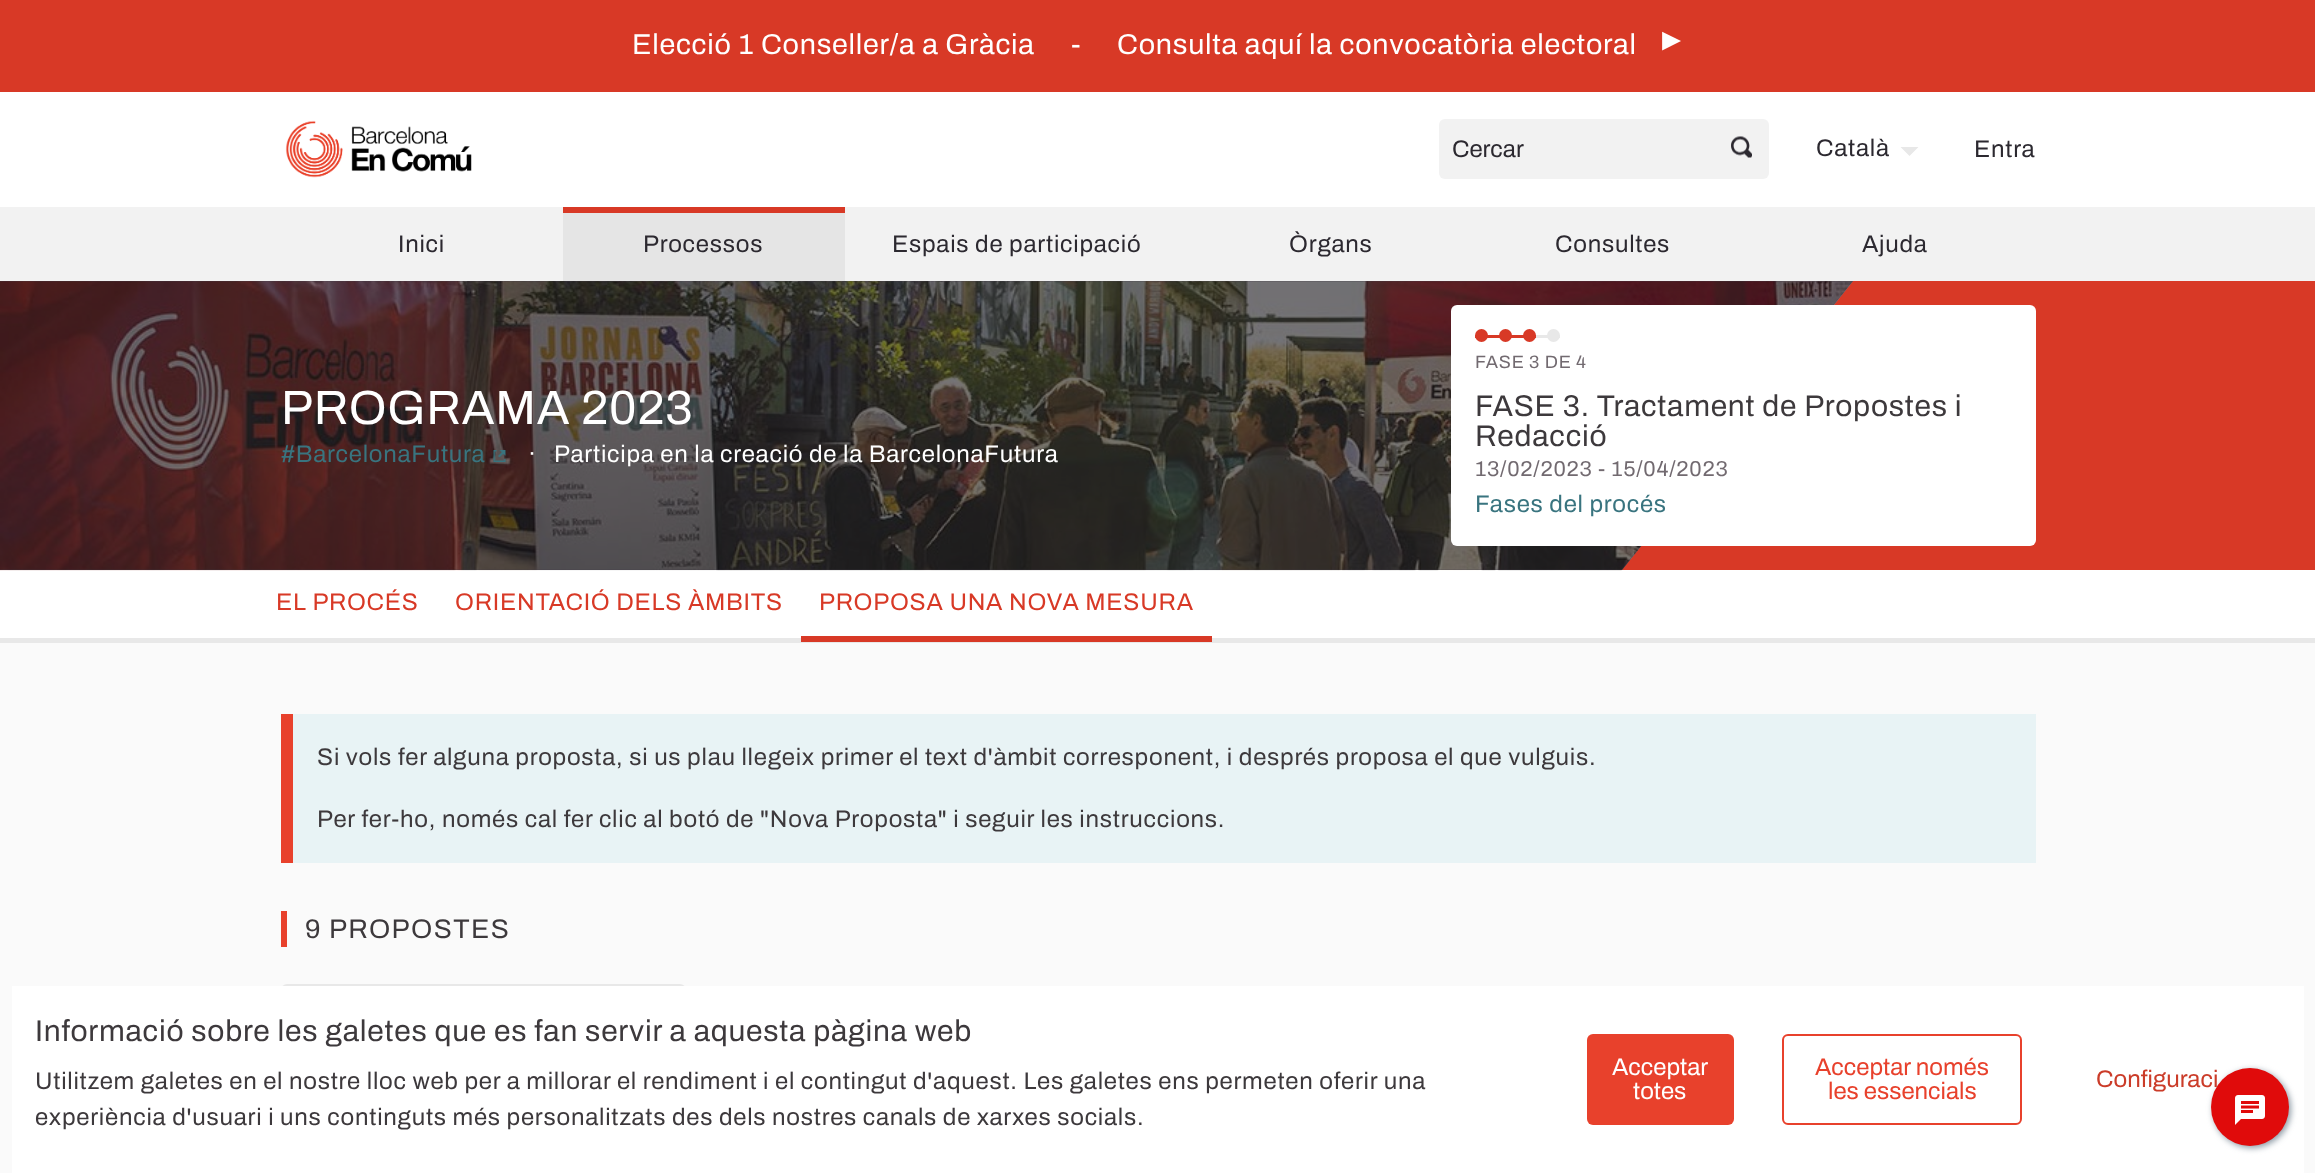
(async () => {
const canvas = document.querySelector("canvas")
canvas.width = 2315
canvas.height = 1173
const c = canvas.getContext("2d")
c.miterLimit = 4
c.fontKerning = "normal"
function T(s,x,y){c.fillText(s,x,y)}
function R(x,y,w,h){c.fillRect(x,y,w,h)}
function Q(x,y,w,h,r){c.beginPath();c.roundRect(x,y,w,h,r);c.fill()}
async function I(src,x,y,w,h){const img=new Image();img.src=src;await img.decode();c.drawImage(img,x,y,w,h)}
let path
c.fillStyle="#fafafa"
R(0,0,2315,1173)
c.fillStyle="#d83926"
R(0,0,2315,92)
c.letterSpacing="0.75px"
c.font="600 28.75px Archivo"
c.fillStyle="#fff"
T("Elecció 1 Conseller/a a Gràcia",632,54)
T("-",1071,54)
T("Consulta aquí la convocatòria electoral",1117,54)
await I("1.png",1662,31,19,20)
R(0,92,2315,115)
await I("2.png",285,120,187,58)
c.fillStyle="#f2f2f2"
c.beginPath()
c.roundRect(1439,119,276,60,[6,0,0,6])
c.fill()
c.letterSpacing="0px"
c.font="600 24px Archivo"
c.fillStyle="#2c2930"
T("Cercar",1452,157)
c.fillStyle="#f2f2f2"
c.beginPath()
c.roundRect(1715,119,54,60,[0,6,6,0])
c.fill()
await I("3.png",1731,136,21,22)
c.letterSpacing="0.75px"
c.fillStyle="#2c2930"
T("Català",1816,156)
c.fillStyle="#e8e8e8"
path = new Path2D("M1900.5 147h18l-9 9z")
c.fill(path)
c.fillStyle="#2c2930"
T("Entra",1974,157)
c.fillStyle="#f2f2f2"
R(0,207,2315,74)
c.fillStyle="#2c2930"
T("Inici",398,252)
c.fillStyle="#e5e5e5"
R(563,213,282,68)
c.fillStyle="#d83926"
R(563,207,282,6)
c.fillStyle="#2c2930"
T("Processos",643,252)
T("Espais de participació",892,252)
T("Òrgans",1289,252)
T("Consultes",1555,252)
T("Ajuda",1862,252)
c.fillStyle="#d83926"
R(1622,281,693,289)
c.fillStyle="#786f83"
path = new Path2D("M0 281v289h1622l231-289z")
c.fill(path)
c.fillStyle="#fff"
R(0,570,2315,68)
await I("4.png",0,281,1853,290)
c.fillStyle="#1a181d99"
path = new Path2D("M0 281v289h1622l231-289z")
c.fill(path)
c.font="600 48px Archivo"
c.fillStyle="#fff"
T("PROGRAMA 2023",281,424)
c.font="600 24px Archivo"
c.fillStyle="#39747f"
T("#BarcelonaFutura",281,462)
await I("5.png",493,450,13,12)
c.fillStyle="#fff"
T("·",528,462)
T("Participa en la creació de la BarcelonaFutura",554,462)
Q(1451,305,585,241,6)
c.fillStyle="#d83926"
c.beginPath()
c.arc(1481.5,335.5,6.5,0,7)
c.fill()
R(1475,335,13,3)
c.beginPath()
c.arc(1505.5,335.5,6.5,0,7)
c.fill()
R(1488,335,24,3)
c.beginPath()
c.arc(1529.5,335.5,6.5,0,7)
c.fill()
R(1512,335,24,3)
c.fillStyle="#e8e8e8"
c.beginPath()
c.arc(1553.5,335.5,6.5,0,7)
c.fill()
R(1536,335,24,3)
c.font="600 18px Archivo"
c.fillStyle="#726a70"
T("FASE 3 DE 4",1475,368)
c.font="600 30px Archivo"
c.fillStyle="#3d393c"
T("FASE 3. Tractament de Propostes i",1475,416)
T("Redacció",1475,446)
c.font="600 21.6px Archivo"
c.fillStyle="#726a70"
T("13/02/2023 - 15/04/2023",1475,476)
c.font="600 24px Archivo"
c.fillStyle="#39747f"
T("Fases del procés",1475,512)
c.fillStyle="#e8e8e8"
R(0,638,2315,5)
c.fillStyle="#d83926"
T("EL PROCÉS",276,610)
T("ORIENTACIÓ DELS ÀMBITS",455,610)
R(801,636,411,6)
T("PROPOSA UNA NOVA MESURA",819,610)
c.fillStyle="#e8f3f5"
R(293,714,1743,149)
c.fillStyle="#e8412c"
R(281,714,12,149)
c.fillStyle="#3d393c"
T("Si vols fer alguna proposta, si us plau llegeix primer el text d'àmbit corresponent, i després proposa el que vulguis.",317,765)
T("Per fer-ho, només cal fer clic al botó de \"Nova Proposta\" i seguir les instruccions.",317,827)
c.fillStyle="#e8412c"
R(281,911,6,36)
c.letterSpacing="1.4px"
c.font="600 27px Archivo"
c.fillStyle="#3d393c"
T("9 PROPOSTES",305,938)
c.beginPath()
c.roundRect(282,985,403,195,5)
c.strokeStyle="#e8e8e8"
c.lineWidth=2
c.stroke()
c.fillStyle="#fff"
R(12,986,2292,187)
c.letterSpacing="0.75px"
c.font="600 30px Archivo"
c.fillStyle="#3d393c"
T("Informació sobre les galetes que es fan servir a aquesta pàgina web",35,1041)
c.font="600 24px Archivo"
T("Utilitzem galetes en el nostre lloc web per a millorar el rendiment i el contingut d'aquest. Les galetes ens permeten oferir una",35,1089)
T("experiència d'usuari i uns continguts més personalitzats des dels nostres canals de xarxes socials.",35,1125)
c.fillStyle="#e8412c"
Q(1587,1034,147,91,6)
c.letterSpacing="0px"
c.fillStyle="#fff"
T("Acceptar",1612,1075)
T("totes",1633,1099)
c.beginPath()
c.roundRect(1783,1035,238,89,5)
c.strokeStyle="#e8412c"
c.stroke()
c.fillStyle="#e8412c"
T("Acceptar només",1815,1075)
T("les essencials",1828,1099)
c.fillStyle="#cb3c29"
T("Configuraci",2096,1087)
c.fillStyle="#657786bf"
c.filter="blur(3px)"
c.beginPath()
c.roundRect(2213,1070,78,78,39)
c.fill()
c.filter="none"
c.fillStyle="#e00b0b"
c.beginPath()
c.arc(2250,1107,39,0,7)
c.fill()
await I("6.png",2235,1095,30,30)
})()
